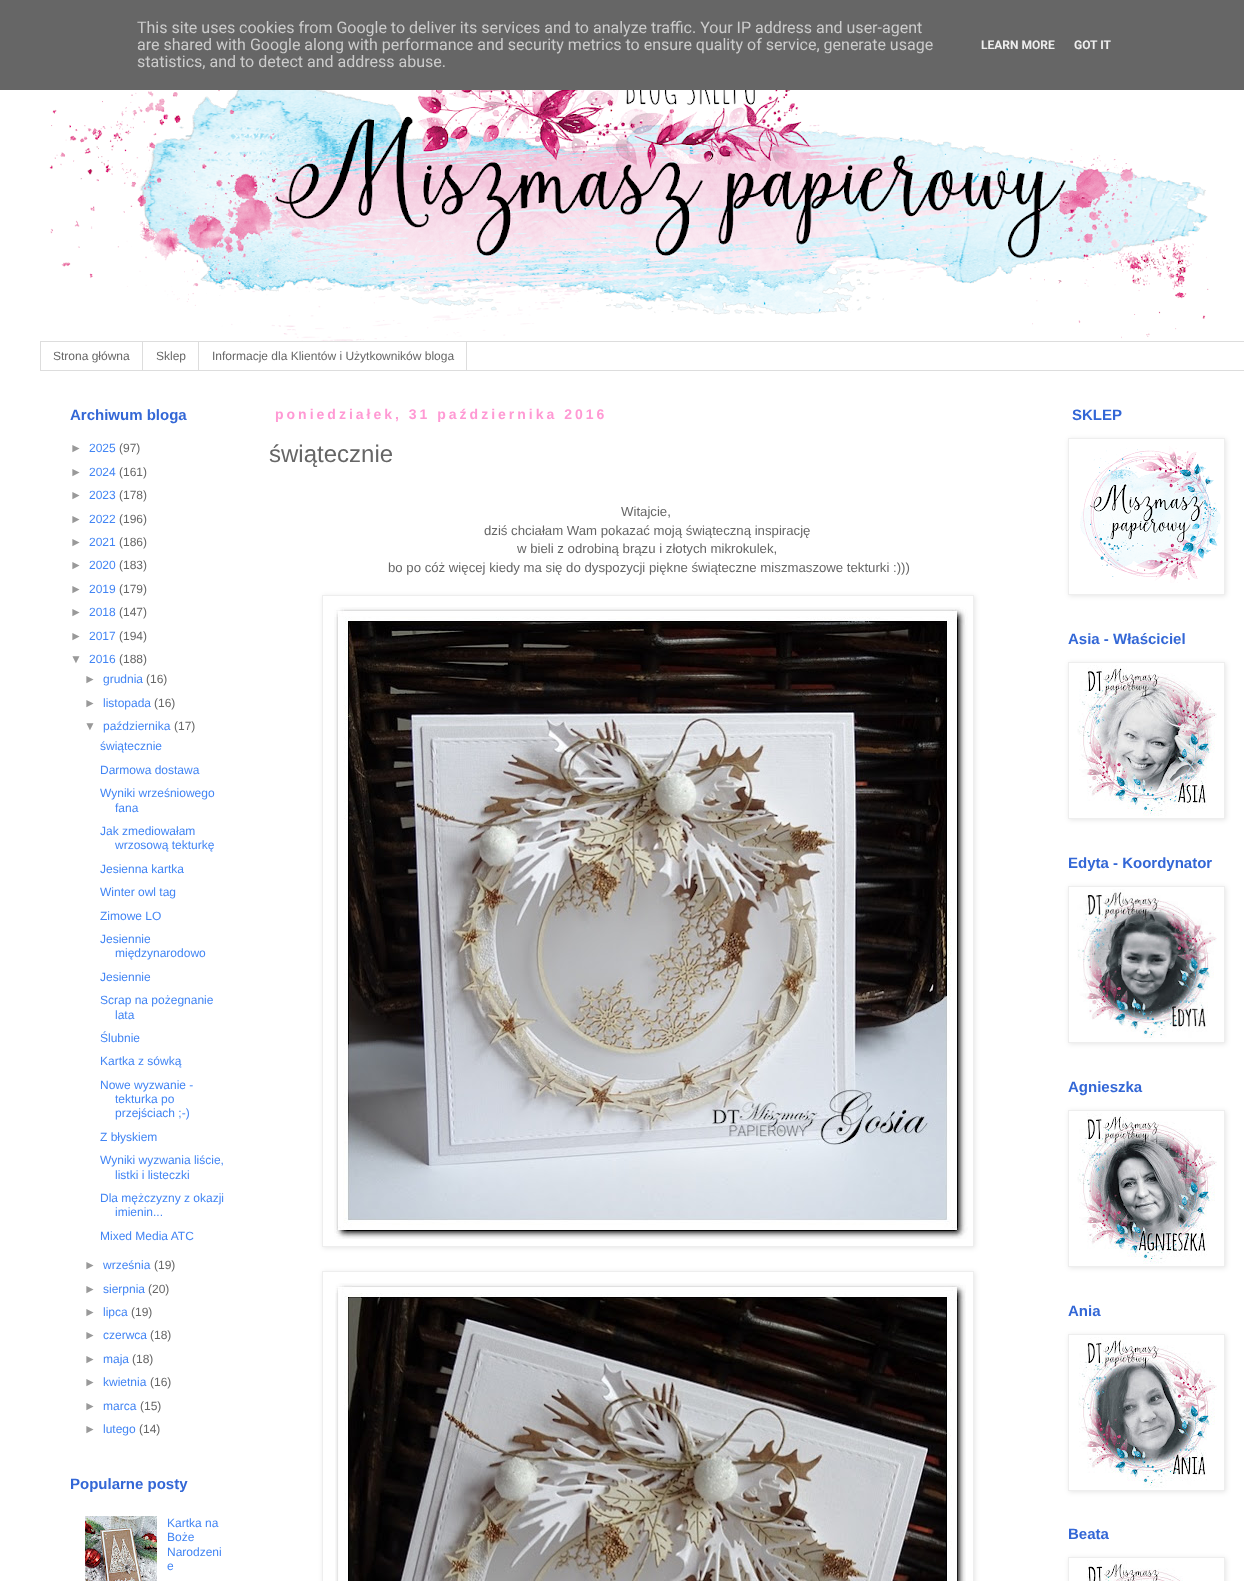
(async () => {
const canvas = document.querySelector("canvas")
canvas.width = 1244
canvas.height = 1581
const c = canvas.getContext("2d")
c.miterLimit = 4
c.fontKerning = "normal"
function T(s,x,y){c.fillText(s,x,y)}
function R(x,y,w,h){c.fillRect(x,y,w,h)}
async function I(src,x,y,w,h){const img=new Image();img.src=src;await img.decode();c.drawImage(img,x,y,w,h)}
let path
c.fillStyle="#fff"
R(0,0,1244,1581)
c.fillStyle="#666"
R(0,0,1244,90)
c.font="16px Roboto"
c.fillStyle="#ccc"
T("This site uses cookies from Google to deliver its services and to analyze traffic. Your IP address and user-agent",137,33)
T("are shared with Google along with performance and security metrics to ensure quality of service, generate usage",137,50)
T("statistics, and to detect and address abuse.",137,67)
c.font="bold 12px Roboto"
c.fillStyle="#eee"
T("LEARN MORE",981,49)
T("GOT IT",1074,49)
await I("1.png",49,90,1160,251)
c.strokeStyle="#ddd"
c.strokeRect(40.5,341.5,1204,29)
c.fillStyle="#ddd"
R(142,342,1,28)
c.font="12px Liberation Sans"
c.fillStyle="#666"
T("Strona główna",53,360)
c.fillStyle="#ddd"
R(198,342,1,28)
c.fillStyle="#666"
T("Sklep",156,360)
c.fillStyle="#ddd"
R(466,342,1,28)
c.fillStyle="#666"
T("Informacje dla Klientów i Użytkowników bloga",212,360)
c.font="bold 15px Liberation Sans"
c.fillStyle="#3367d6"
T("Archiwum bloga",70,420)
c.font="12px Liberation Sans"
c.fillStyle="#999"
T("►",70,452)
c.fillStyle="#4285f4"
T("2025",89,452)
c.fillStyle="#666"
T("(97)",119,452)
c.fillStyle="#999"
T("►",70,476)
c.fillStyle="#4285f4"
T("2024",89,476)
c.fillStyle="#666"
T("(161)",119,476)
c.fillStyle="#999"
T("►",70,499)
c.fillStyle="#4285f4"
T("2023",89,499)
c.fillStyle="#666"
T("(178)",119,499)
c.fillStyle="#999"
T("►",70,523)
c.fillStyle="#4285f4"
T("2022",89,523)
c.fillStyle="#666"
T("(196)",119,523)
c.fillStyle="#999"
T("►",70,546)
c.fillStyle="#4285f4"
T("2021",89,546)
c.fillStyle="#666"
T("(186)",119,546)
c.fillStyle="#999"
T("►",70,569)
c.fillStyle="#4285f4"
T("2020",89,569)
c.fillStyle="#666"
T("(183)",119,569)
c.fillStyle="#999"
T("►",70,593)
c.fillStyle="#4285f4"
T("2019",89,593)
c.fillStyle="#666"
T("(179)",119,593)
c.fillStyle="#999"
T("►",70,616)
c.fillStyle="#4285f4"
T("2018",89,616)
c.fillStyle="#666"
T("(147)",119,616)
c.fillStyle="#999"
T("►",70,640)
c.fillStyle="#4285f4"
T("2017",89,640)
c.fillStyle="#666"
T("(194)",119,640)
c.fillStyle="#999"
T("▼",70,663)
c.fillStyle="#4285f4"
T("2016",89,663)
c.fillStyle="#666"
T("(188)",119,663)
c.fillStyle="#999"
T("►",84,683)
c.fillStyle="#4285f4"
T("grudnia",103,683)
c.fillStyle="#666"
T("(16)",146,683)
c.fillStyle="#999"
T("►",84,707)
c.fillStyle="#4285f4"
T("listopada",103,707)
c.fillStyle="#666"
T("(16)",154,707)
c.fillStyle="#999"
T("▼",84,730)
c.fillStyle="#4285f4"
T("października",103,730)
c.fillStyle="#666"
T("(17)",174,730)
c.fillStyle="#4285f4"
T("świątecznie",100,750)
T("Darmowa dostawa",100,774)
T("Wyniki wrześniowego",100,797)
T("fana",115,812)
T("Jak zmediowałam",100,835)
T("wrzosową tekturkę",115,849)
T("Jesienna kartka",100,873)
T("Winter owl tag",100,896)
T("Zimowe LO",100,920)
T("Jesiennie",100,943)
T("międzynarodowo",115,957)
T("Jesiennie",100,981)
T("Scrap na pożegnanie",100,1004)
T("lata",115,1019)
T("Ślubnie",100,1042)
T("Kartka z sówką",100,1065)
T("Nowe wyzwanie -",100,1089)
T("tekturka po",115,1103)
T("przejściach ;-)",115,1117)
T("Z błyskiem",100,1141)
T("Wyniki wyzwania liście,",100,1164)
T("listki i listeczki",115,1179)
T("Dla mężczyzny z okazji",100,1202)
T("imienin...",115,1216)
T("Mixed Media ATC",100,1240)
c.fillStyle="#999"
T("►",84,1269)
c.fillStyle="#4285f4"
T("września",103,1269)
c.fillStyle="#666"
T("(19)",154,1269)
c.fillStyle="#999"
T("►",84,1293)
c.fillStyle="#4285f4"
T("sierpnia",103,1293)
c.fillStyle="#666"
T("(20)",148,1293)
c.fillStyle="#999"
T("►",84,1316)
c.fillStyle="#4285f4"
T("lipca",103,1316)
c.fillStyle="#666"
T("(19)",131,1316)
c.fillStyle="#999"
T("►",84,1339)
c.fillStyle="#4285f4"
T("czerwca",103,1339)
c.fillStyle="#666"
T("(18)",150,1339)
c.fillStyle="#999"
T("►",84,1363)
c.fillStyle="#4285f4"
T("maja",103,1363)
c.fillStyle="#666"
T("(18)",132,1363)
c.fillStyle="#999"
T("►",84,1386)
c.fillStyle="#4285f4"
T("kwietnia",103,1386)
c.fillStyle="#666"
T("(16)",150,1386)
c.fillStyle="#999"
T("►",84,1410)
c.fillStyle="#4285f4"
T("marca",103,1410)
c.fillStyle="#666"
T("(15)",140,1410)
c.fillStyle="#999"
T("►",84,1433)
c.fillStyle="#4285f4"
T("lutego",103,1433)
c.fillStyle="#666"
T("(14)",139,1433)
c.font="bold 15px Liberation Sans"
c.fillStyle="#3367d6"
T("Popularne posty",70,1489)
await I("2.png",85,1516,72,65)
c.font="12px Liberation Sans"
c.fillStyle="#4285f4"
T("Kartka na",167,1527)
T("Boże",167,1541)
T("Narodzeni",167,1556)
T("e",167,1570)
c.letterSpacing="3px"
c.font="bold 14px Liberation Sans"
c.fillStyle="#ff99d4"
T("poniedziałek, 31 października 2016",275,419)
c.letterSpacing="0px"
c.font="24px Liberation Sans"
c.fillStyle="#666"
T("świątecznie",269,462)
c.font="13.2px Liberation Sans"
T("Witajcie,",621,516)
T("dziś chciałam Wam pokazać moją świąteczną inspirację",484,535)
T("w bieli z odrobiną brązu i złotych mikrokulek,",517,553)
T("bo po cóż więcej kiedy ma się do dyspozycji piękne świąteczne miszmaszowe tekturki :)))",388,572)
c.save()
path = new Path2D("M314 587h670v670h-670zm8 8h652v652h-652z")
c.clip(path,"evenodd")
c.fillStyle="#0000001a"
c.filter="blur(2.5px)"
c.beginPath()
c.rect(323,596,652,652)
c.fill()
c.filter="none"
c.restore()
c.strokeStyle="#eee"
c.strokeRect(322.5,595.5,651,651)
await I("3.png",334,607,634,632)
c.save()
path = new Path2D("M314 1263h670v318h-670zm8 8h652v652h-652z")
c.clip(path,"evenodd")
c.fillStyle="#0000001a"
c.filter="blur(2.5px)"
c.beginPath()
c.rect(323,1272,652,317)
c.fill()
c.filter="none"
c.restore()
c.strokeRect(322.5,1271.5,651,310)
await I("4.png",335,1283,631,298)
c.font="bold 15px Liberation Sans"
c.fillStyle="#3367d6"
T("SKLEP",1072,420)
c.save()
path = new Path2D("M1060 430h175v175h-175zm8 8h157v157h-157z")
c.clip(path,"evenodd")
c.fillStyle="#0000001a"
c.filter="blur(2.5px)"
c.beginPath()
c.rect(1069,439,157,157)
c.fill()
c.filter="none"
c.restore()
c.strokeRect(1068.5,438.5,156,156)
await I("5.png",1080,446,141,137)
T("Asia - Właściciel",1068,644)
c.save()
path = new Path2D("M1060 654h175v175h-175zm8 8h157v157h-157z")
c.clip(path,"evenodd")
c.fillStyle="#0000001a"
c.filter="blur(2.5px)"
c.beginPath()
c.rect(1069,663,157,157)
c.fill()
c.filter="none"
c.restore()
c.strokeRect(1068.5,662.5,156,156)
await I("6.png",1077,665,140,151)
T("Edyta - Koordynator",1068,868)
c.save()
path = new Path2D("M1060 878h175v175h-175zm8 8h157v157h-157z")
c.clip(path,"evenodd")
c.fillStyle="#0000001a"
c.filter="blur(2.5px)"
c.beginPath()
c.rect(1069,887,157,157)
c.fill()
c.filter="none"
c.restore()
c.strokeRect(1068.5,886.5,156,156)
await I("7.png",1077,889,140,149)
T("Agnieszka",1068,1092)
c.save()
path = new Path2D("M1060 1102h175v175h-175zm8 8h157v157h-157z")
c.clip(path,"evenodd")
c.fillStyle="#0000001a"
c.filter="blur(2.5px)"
c.beginPath()
c.rect(1069,1111,157,157)
c.fill()
c.filter="none"
c.restore()
c.strokeRect(1068.5,1110.5,156,156)
await I("8.png",1077,1113,140,151)
T("Ania",1068,1316)
c.save()
path = new Path2D("M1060 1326h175v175h-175zm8 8h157v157h-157z")
c.clip(path,"evenodd")
c.fillStyle="#0000001a"
c.filter="blur(2.5px)"
c.beginPath()
c.rect(1069,1335,157,157)
c.fill()
c.filter="none"
c.restore()
c.strokeRect(1068.5,1334.5,156,156)
await I("9.png",1078,1337,139,151)
T("Beata",1068,1539)
c.save()
path = new Path2D("M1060 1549h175v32h-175zm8 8h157v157h-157z")
c.clip(path,"evenodd")
c.fillStyle="#0000001a"
c.filter="blur(2.5px)"
c.beginPath()
c.rect(1069,1558,157,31)
c.fill()
c.filter="none"
c.restore()
c.strokeRect(1068.5,1557.5,156,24)
await I("10.png",1087,1560,96,21)
})()
